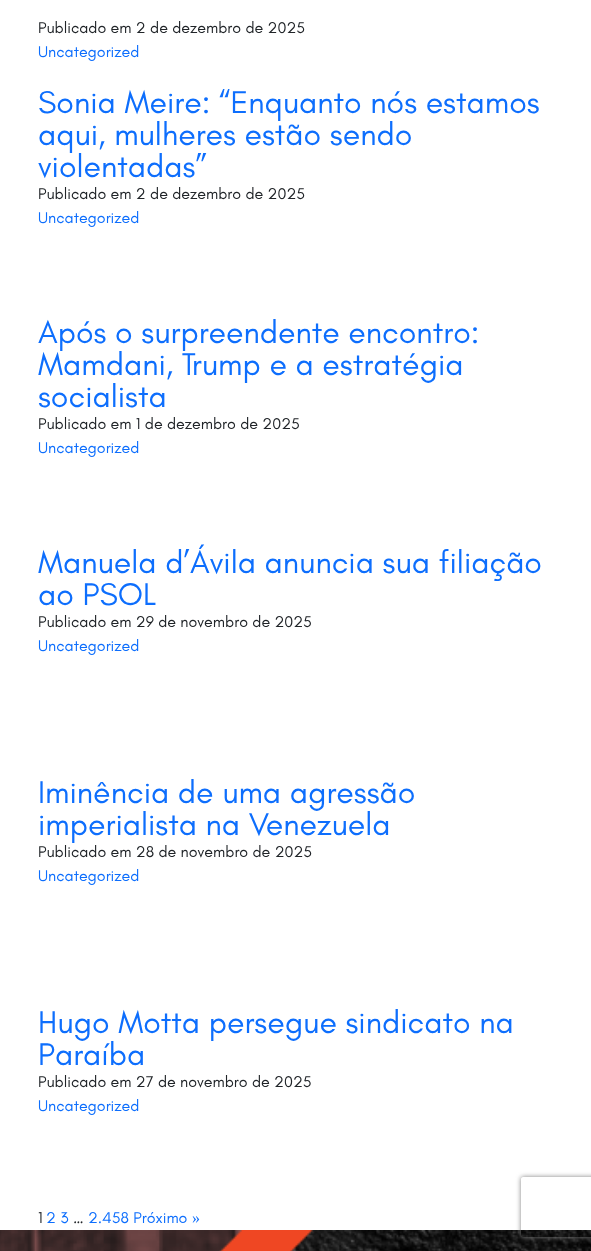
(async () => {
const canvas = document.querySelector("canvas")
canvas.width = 591
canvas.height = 1251
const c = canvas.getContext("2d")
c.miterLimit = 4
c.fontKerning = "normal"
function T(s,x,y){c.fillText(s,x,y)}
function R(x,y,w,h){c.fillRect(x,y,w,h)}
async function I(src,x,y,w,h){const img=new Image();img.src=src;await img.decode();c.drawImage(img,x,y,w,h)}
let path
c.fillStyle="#fff"
R(0,0,591,1251)
c.font="16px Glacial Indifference"
c.fillStyle="#212529"
T("Publicado em 2 de dezembro de 2025",38,33)
c.fillStyle="#0d6efd"
T("Uncategorized",38,57)
c.font="32px Glacial Indifference"
T("Sonia Meire: “Enquanto nós estamos",38,113)
T("aqui, mulheres estão sendo",38,145)
T("violentadas”",38,177)
c.font="16px Glacial Indifference"
c.fillStyle="#212529"
T("Publicado em 2 de dezembro de 2025",38,199)
c.fillStyle="#0d6efd"
T("Uncategorized",38,223)
c.font="32px Glacial Indifference"
T("Após o surpreendente encontro:",38,343)
T("Mamdani, Trump e a estratégia",38,375)
T("socialista",38,407)
c.font="16px Glacial Indifference"
c.fillStyle="#212529"
T("Publicado em 1 de dezembro de 2025",38,429)
c.fillStyle="#0d6efd"
T("Uncategorized",38,453)
c.font="32px Glacial Indifference"
T("Manuela d’Ávila anuncia sua filiação",38,573)
T("ao PSOL",38,605)
c.font="16px Glacial Indifference"
c.fillStyle="#212529"
T("Publicado em 29 de novembro de 2025",38,627)
c.fillStyle="#0d6efd"
T("Uncategorized",38,651)
c.font="32px Glacial Indifference"
T("Iminência de uma agressão",38,803)
T("imperialista na Venezuela",38,835)
c.font="16px Glacial Indifference"
c.fillStyle="#212529"
T("Publicado em 28 de novembro de 2025",38,857)
c.fillStyle="#0d6efd"
T("Uncategorized",38,881)
c.font="32px Glacial Indifference"
T("Hugo Motta persegue sindicato na",38,1033)
T("Paraíba",38,1065)
c.font="16px Glacial Indifference"
c.fillStyle="#212529"
T("Publicado em 27 de novembro de 2025",38,1087)
c.fillStyle="#0d6efd"
T("Uncategorized",38,1111)
c.fillStyle="#212529"
T("1",38,1223)
c.fillStyle="#0d6efd"
T("2 3",46,1223)
c.fillStyle="#212529"
T("…",73,1223)
c.fillStyle="#0d6efd"
T("2.458 Próximo",88,1223)
c.font="16px Liberation Serif"
T("»",192,1223)
await I("1.png",0,1230,591,21)
c.save()
path = new Path2D("M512 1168h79v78h-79zm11 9h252c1 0 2 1 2 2v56c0 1-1 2-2 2h-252c-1 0-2-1-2-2v-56c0-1 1-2 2-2z")
c.clip(path,"evenodd")
c.fillStyle="#808080"
c.filter="blur(2.5px)"
c.beginPath()
c.roundRect(521,1177,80,60,2)
c.fill()
c.filter="none"
c.restore()
})()
